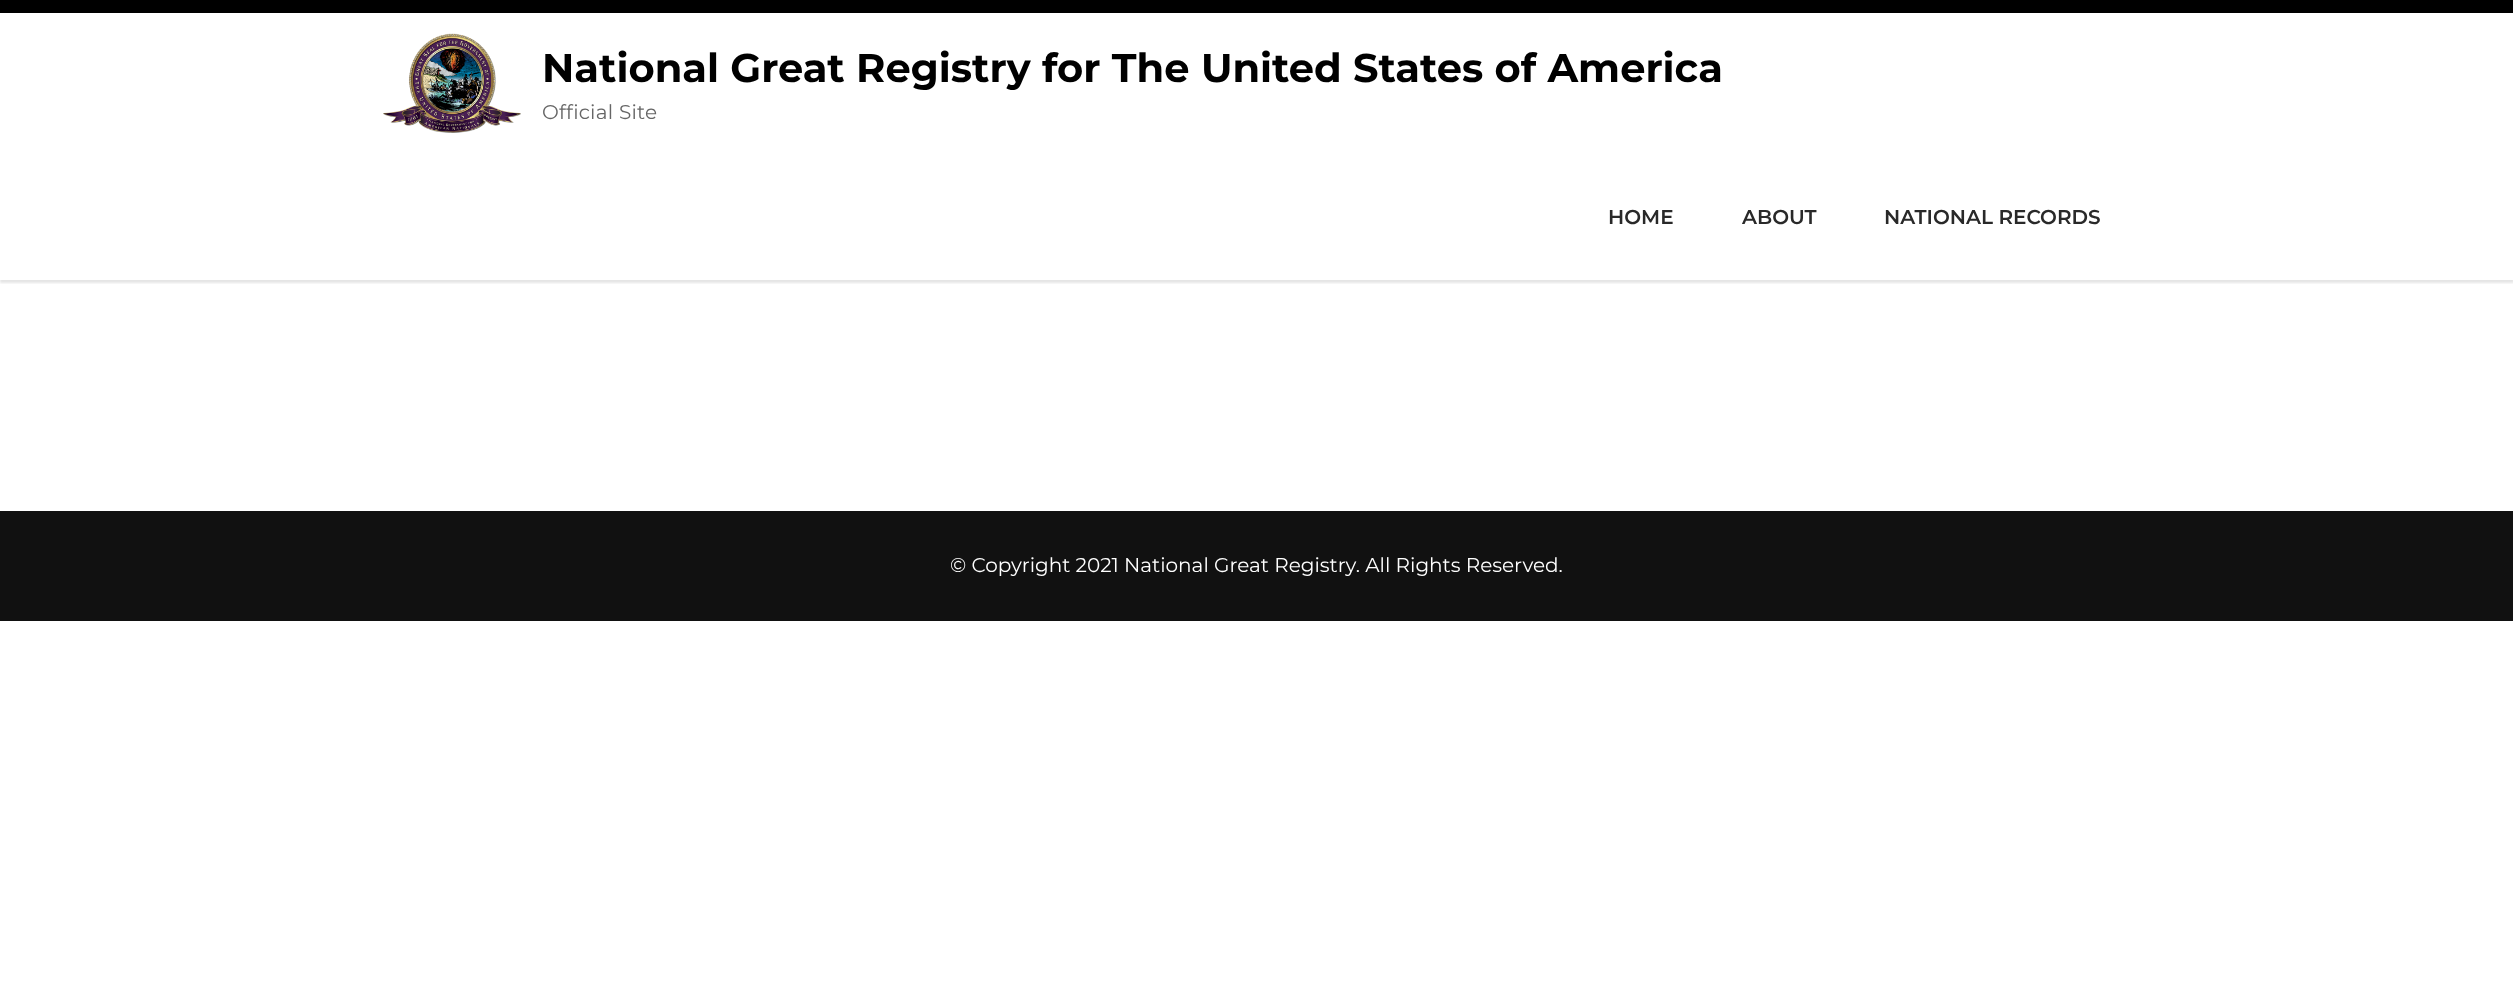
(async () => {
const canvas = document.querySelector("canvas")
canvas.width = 2513
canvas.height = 997
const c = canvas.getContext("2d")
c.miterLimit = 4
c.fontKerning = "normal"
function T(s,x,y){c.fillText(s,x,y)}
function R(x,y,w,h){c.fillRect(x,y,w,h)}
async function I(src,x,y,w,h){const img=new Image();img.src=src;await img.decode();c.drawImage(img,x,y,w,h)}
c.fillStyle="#fff"
R(0,0,2513,997)
c.fillStyle="#000"
R(0,0,2513,13)
c.save()
c.beginPath()
c.rect(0,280,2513,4)
c.clip()
c.fillStyle="#0000001a"
c.filter="blur(1px)"
c.beginPath()
c.rect(0,15,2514,268)
c.fill()
c.filter="none"
c.restore()
await I("1.png",383,33,138,100)
c.font="bold 40px Montserrat"
T("National Great Registry for The United States of America",542,82)
c.letterSpacing="0.25px"
c.font="20px Montserrat"
c.fillStyle="#666"
T("Official Site",542,119)
c.letterSpacing="0px"
c.font="600 20px Montserrat"
c.fillStyle="#292929"
T("HOME",1608,224)
T("ABOUT",1742,224)
T("NATIONAL RECORDS",1884,224)
c.fillStyle="#111"
R(0,511,2513,110)
c.font="20px Montserrat"
c.fillStyle="#fff"
T("© Copyright 2021 National Great Registry. All Rights Reserved.",950,572)
})()
